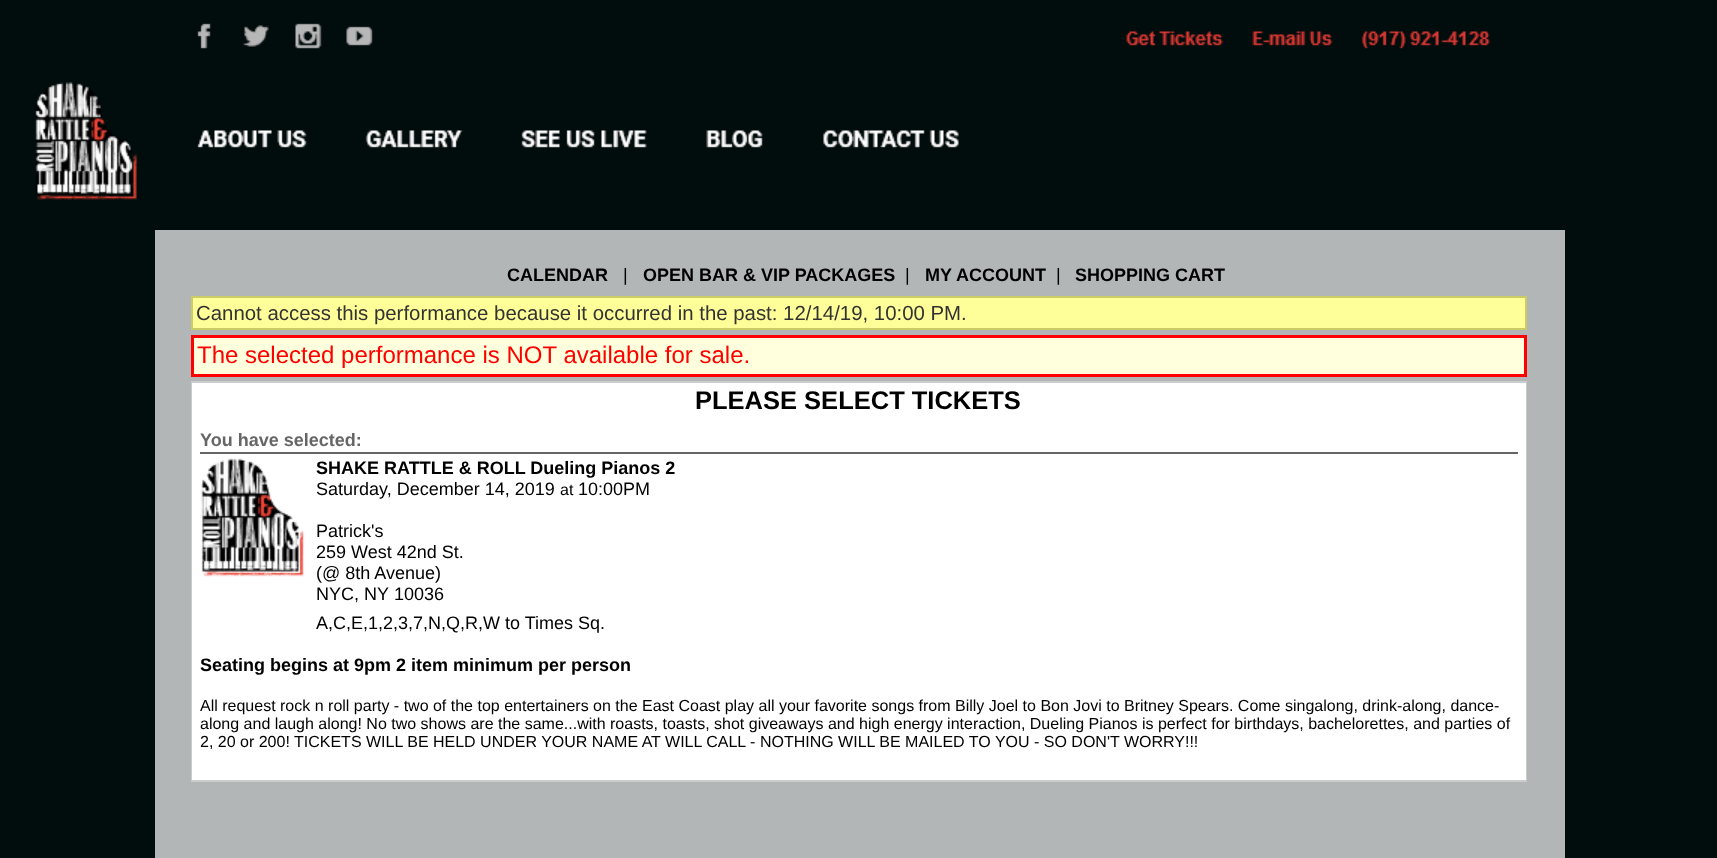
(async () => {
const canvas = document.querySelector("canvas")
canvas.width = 1717
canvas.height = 858
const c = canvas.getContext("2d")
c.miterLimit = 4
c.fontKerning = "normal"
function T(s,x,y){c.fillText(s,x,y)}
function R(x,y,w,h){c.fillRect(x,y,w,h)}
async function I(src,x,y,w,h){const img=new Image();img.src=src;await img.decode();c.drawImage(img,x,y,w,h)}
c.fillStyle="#010d0d"
R(0,0,1717,858)
await I("1.png",35,23,1455,177)
c.fillStyle="#b3b6b6"
R(155,230,1410,628)
c.font="bold 18px Liberation Sans"
c.fillStyle="#000"
T("CALENDAR",507,281)
c.font="18px Liberation Sans"
T("|",623,281)
c.font="bold 18px Liberation Sans"
T("OPEN BAR & VIP PACKAGES",643,281)
c.font="18px Liberation Sans"
T("|",905,281)
c.font="bold 18px Liberation Sans"
T("MY ACCOUNT",925,281)
c.font="18px Liberation Sans"
T("|",1056,281)
c.font="bold 18px Liberation Sans"
T("SHOPPING CART",1075,281)
c.fillStyle="#ff9"
c.beginPath()
c.rect(192,297,1334,32)
c.fill()
c.strokeStyle="#cc6"
c.lineWidth=2
c.stroke()
c.font="20.4px Liberation Sans"
c.fillStyle="#333"
T("Cannot access this performance because it occurred in the past: 12/14/19, 10:00 PM.",196,320)
c.fillStyle="#ffd"
c.beginPath()
c.rect(192.5,336.5,1333,39)
c.fill()
c.strokeStyle="#f00"
c.lineWidth=3
c.stroke()
c.font="24px Liberation Sans"
c.fillStyle="#f00"
T("The selected performance is NOT available for sale.",197,363)
c.strokeStyle="#ccc"
c.lineWidth=2
c.strokeRect(192,382,1334,399)
c.fillStyle="#fff"
R(192,383,1334,397)
c.font="bold 25.5px Liberation Sans"
c.fillStyle="#000"
T("PLEASE SELECT TICKETS",695,409)
c.fillStyle="#666"
R(200,452,1318,2)
c.font="bold 18px Liberation Sans"
T("You have selected:",200,446)
await I("2.png",201,458,104,119)
c.fillStyle="#000"
T("SHAKE RATTLE & ROLL Dueling Pianos 2",316,474)
c.font="18px Liberation Sans"
T("Saturday, December 14, 2019",316,495)
c.font="16px Liberation Sans"
T("at",560,495)
c.font="18px Liberation Sans"
T("10:00PM",578,495)
T("Patrick's",316,537)
T("259 West 42nd St.",316,558)
T("(@ 8th Avenue)",316,579)
T("NYC, NY",316,600)
T("10036",394,600)
T("A,C,E,1,2,3,7,N,Q,R,W to Times Sq.",316,629)
c.font="bold 18px Liberation Sans"
T("Seating begins at 9pm 2 item minimum per person",200,671)
c.font="16px Liberation Sans"
T("All request rock n roll party - two of the top entertainers on the East Coast play all your favorite songs from Billy Joel to Bon Jovi to Britney Spears. Come singalong, drink-along, dance-",200,711)
T("along and laugh along! No two shows are the same...with roasts, toasts, shot giveaways and high energy interaction, Dueling Pianos is perfect for birthdays, bachelorettes, and parties of",200,729)
T("2, 20 or 200!",200,747)
T("TICKETS WILL BE HELD UNDER YOUR NAME AT WILL CALL - NOTHING WILL BE MAILED TO YOU - SO DON'T WORRY!!!",294,747)
})()
